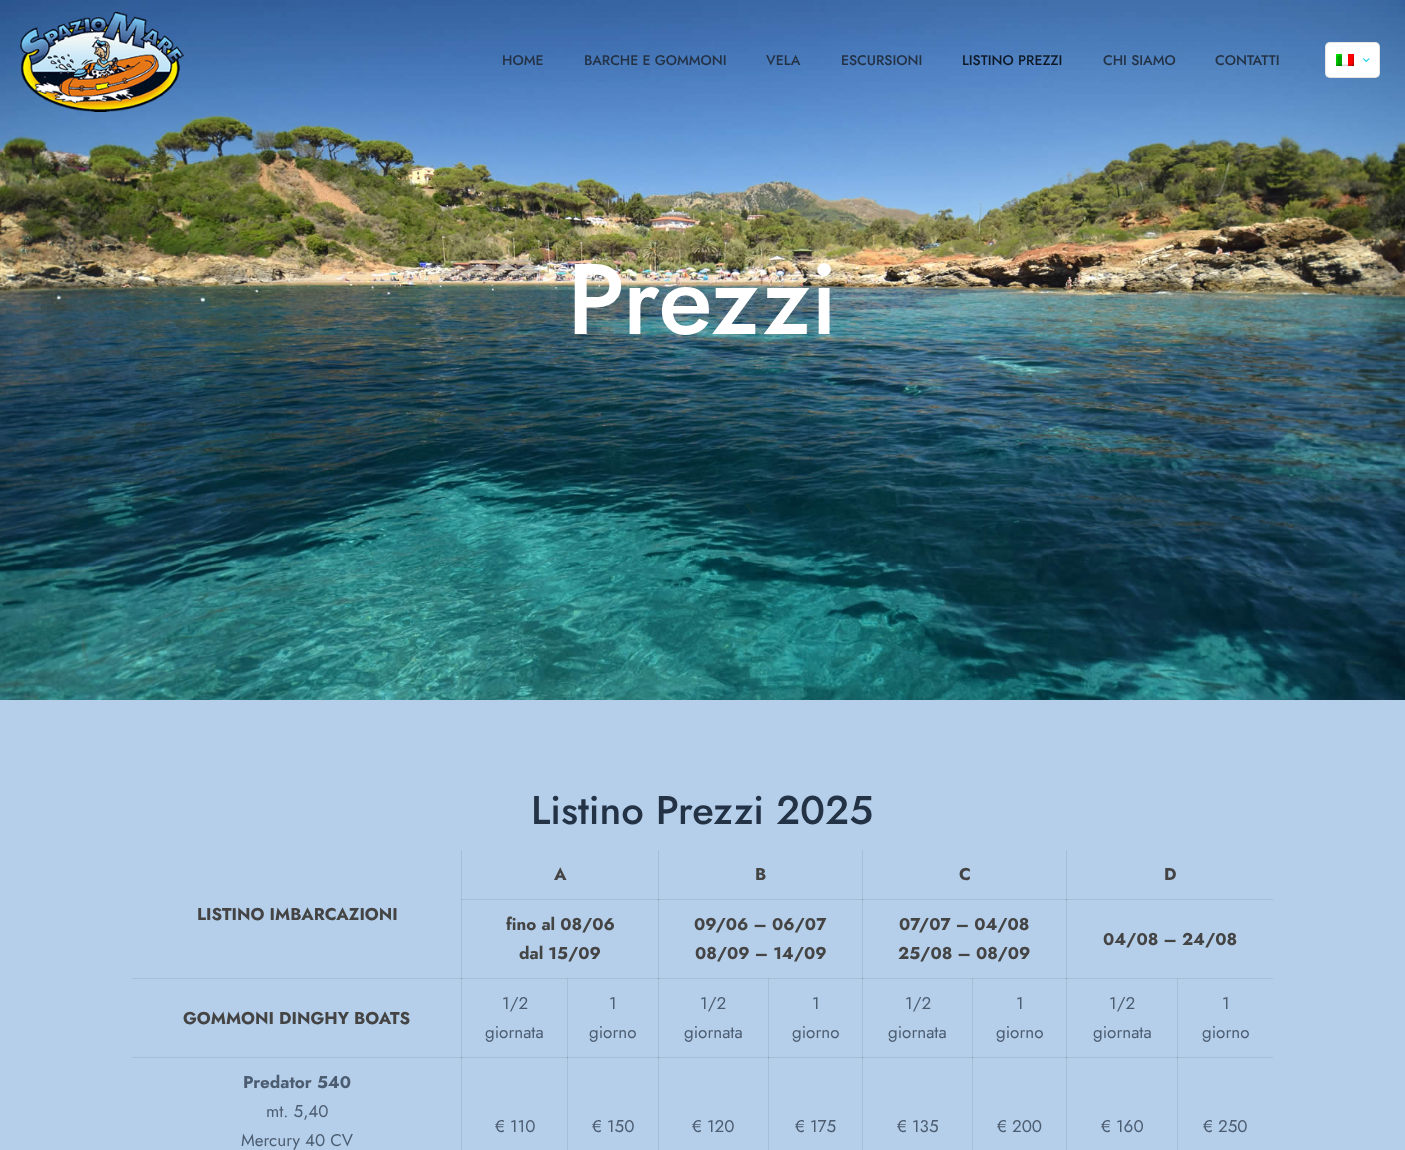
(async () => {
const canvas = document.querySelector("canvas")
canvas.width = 1405
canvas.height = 1150
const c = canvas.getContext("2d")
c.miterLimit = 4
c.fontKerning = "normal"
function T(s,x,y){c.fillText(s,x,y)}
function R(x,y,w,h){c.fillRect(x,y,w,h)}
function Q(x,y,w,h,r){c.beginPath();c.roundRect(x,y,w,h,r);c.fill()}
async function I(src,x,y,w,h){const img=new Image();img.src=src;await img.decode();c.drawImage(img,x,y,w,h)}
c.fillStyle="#fff"
R(0,0,1405,1150)
await I("4.png",0,0,1405,700)
await I("1.png",20,12,164,100)
c.font="500 14px Jost"
c.fillStyle="#233245"
T("HOME",502,65)
T("BARCHE E GOMMONI",584,65)
T("VELA",766,65)
T("ESCURSIONI",841,65)
c.fillStyle="#0f1a28"
T("LISTINO PREZZI",962,65)
c.fillStyle="#233245"
T("CHI SIAMO",1103,65)
T("CONTATTI",1215,65)
c.fillStyle="#fff"
Q(1325,42,55,36,5)
c.beginPath()
c.roundRect(1325.5,42.5,54,35,4.5)
c.strokeStyle="#0000001a"
c.stroke()
await I("2.png",1336,54,18,12)
await I("3.png",1363,58,7,4)
c.font="500 100px Jost"
T("Prezzi",567,334)
c.fillStyle="#b5cfea"
R(0,700,1405,450)
c.fillStyle="#a7bed7"
R(132,978,330,1)
R(461,850,1,129)
R(461,899,198,1)
c.fillStyle="#9aafc6"
R(461,899,1,1)
c.fillStyle="#a7bed7"
R(658,850,1,50)
R(658,899,205,1)
R(862,850,1,50)
R(862,899,205,1)
R(1066,850,1,50)
R(1066,899,207,1)
R(461,978,198,1)
R(658,899,1,80)
c.fillStyle="#8394a7"
R(658,899,1,1)
c.fillStyle="#a7bed7"
R(658,978,205,1)
R(862,899,1,80)
c.fillStyle="#8394a7"
R(862,899,1,1)
c.fillStyle="#a7bed7"
R(862,978,205,1)
R(1066,899,1,80)
c.fillStyle="#8394a7"
R(1066,899,1,1)
c.fillStyle="#a7bed7"
R(1066,978,207,1)
R(132,1057,330,1)
R(461,978,1,80)
c.fillStyle="#8394a7"
R(461,978,1,1)
c.fillStyle="#a7bed7"
R(461,1057,107,1)
R(567,978,1,80)
c.fillStyle="#9aafc6"
R(567,978,1,1)
c.fillStyle="#a7bed7"
R(567,1057,92,1)
R(658,978,1,80)
c.fillStyle="#8394a7"
R(658,978,1,1)
c.fillStyle="#a7bed7"
R(658,1057,111,1)
R(768,978,1,80)
c.fillStyle="#9aafc6"
R(768,978,1,1)
c.fillStyle="#a7bed7"
R(768,1057,95,1)
R(862,978,1,80)
c.fillStyle="#8394a7"
R(862,978,1,1)
c.fillStyle="#a7bed7"
R(862,1057,111,1)
R(972,978,1,80)
c.fillStyle="#9aafc6"
R(972,978,1,1)
c.fillStyle="#a7bed7"
R(972,1057,95,1)
R(1066,978,1,80)
c.fillStyle="#8394a7"
R(1066,978,1,1)
c.fillStyle="#a7bed7"
R(1066,1057,112,1)
R(1177,978,1,80)
c.fillStyle="#9aafc6"
R(1177,978,1,1)
c.fillStyle="#a7bed7"
R(1177,1057,96,1)
c.font="500 40px Jost"
c.fillStyle="#233245"
T("Listino Prezzi 2025",531,824)
c.font="bold 17px Jost"
c.fillStyle="#444"
T("A",554,880)
T("B",755,880)
T("C",959,880)
T("D",1164,880)
T("LISTINO IMBARCAZIONI",197,920)
T("fino al 08/06",506,930)
T("dal 15/09",519,959)
T("09/06 – 06/07",694,930)
T("08/09 – 14/09",695,959)
T("07/07 – 04/08",899,930)
T("25/08 – 08/09",898,959)
T("04/08 – 24/08",1103,945)
T("GOMMONI DINGHY BOATS",183,1024)
c.font="17px Jost"
c.fillStyle="#4d5d71"
T("1/2",502,1009)
T("giornata",485,1038)
T("1",609,1009)
T("giorno",589,1038)
T("1/2",700,1009)
T("giornata",684,1038)
T("1",812,1009)
T("giorno",792,1038)
T("1/2",905,1009)
T("giornata",888,1038)
T("1",1016,1009)
T("giorno",996,1038)
T("1/2",1109,1009)
T("giornata",1093,1038)
T("1",1222,1009)
T("giorno",1202,1038)
c.fillStyle="#a7bed7"
R(461,1057,1,93)
c.fillStyle="#8394a7"
R(461,1057,1,1)
c.font="bold 17px Jost"
c.fillStyle="#4d5d71"
T("Predator 540",243,1088)
c.font="17px Jost"
T("mt. 5,40",266,1117)
T("Mercury 40 CV",241,1146)
c.fillStyle="#a7bed7"
R(567,1057,1,93)
c.fillStyle="#8394a7"
R(567,1057,1,1)
c.fillStyle="#4d5d71"
T("€ 110",495,1132)
c.fillStyle="#a7bed7"
R(658,1057,1,93)
c.fillStyle="#8394a7"
R(658,1057,1,1)
c.fillStyle="#4d5d71"
T("€ 150",592,1132)
c.fillStyle="#a7bed7"
R(768,1057,1,93)
c.fillStyle="#8394a7"
R(768,1057,1,1)
c.fillStyle="#4d5d71"
T("€ 120",692,1132)
c.fillStyle="#a7bed7"
R(862,1057,1,93)
c.fillStyle="#8394a7"
R(862,1057,1,1)
c.fillStyle="#4d5d71"
T("€ 175",795,1132)
c.fillStyle="#a7bed7"
R(972,1057,1,93)
c.fillStyle="#8394a7"
R(972,1057,1,1)
c.fillStyle="#4d5d71"
T("€ 135",897,1132)
c.fillStyle="#a7bed7"
R(1066,1057,1,93)
c.fillStyle="#8394a7"
R(1066,1057,1,1)
c.fillStyle="#4d5d71"
T("€ 200",997,1132)
c.fillStyle="#a7bed7"
R(1177,1057,1,93)
c.fillStyle="#8394a7"
R(1177,1057,1,1)
c.fillStyle="#4d5d71"
T("€ 160",1101,1132)
T("€ 250",1203,1132)
})()
